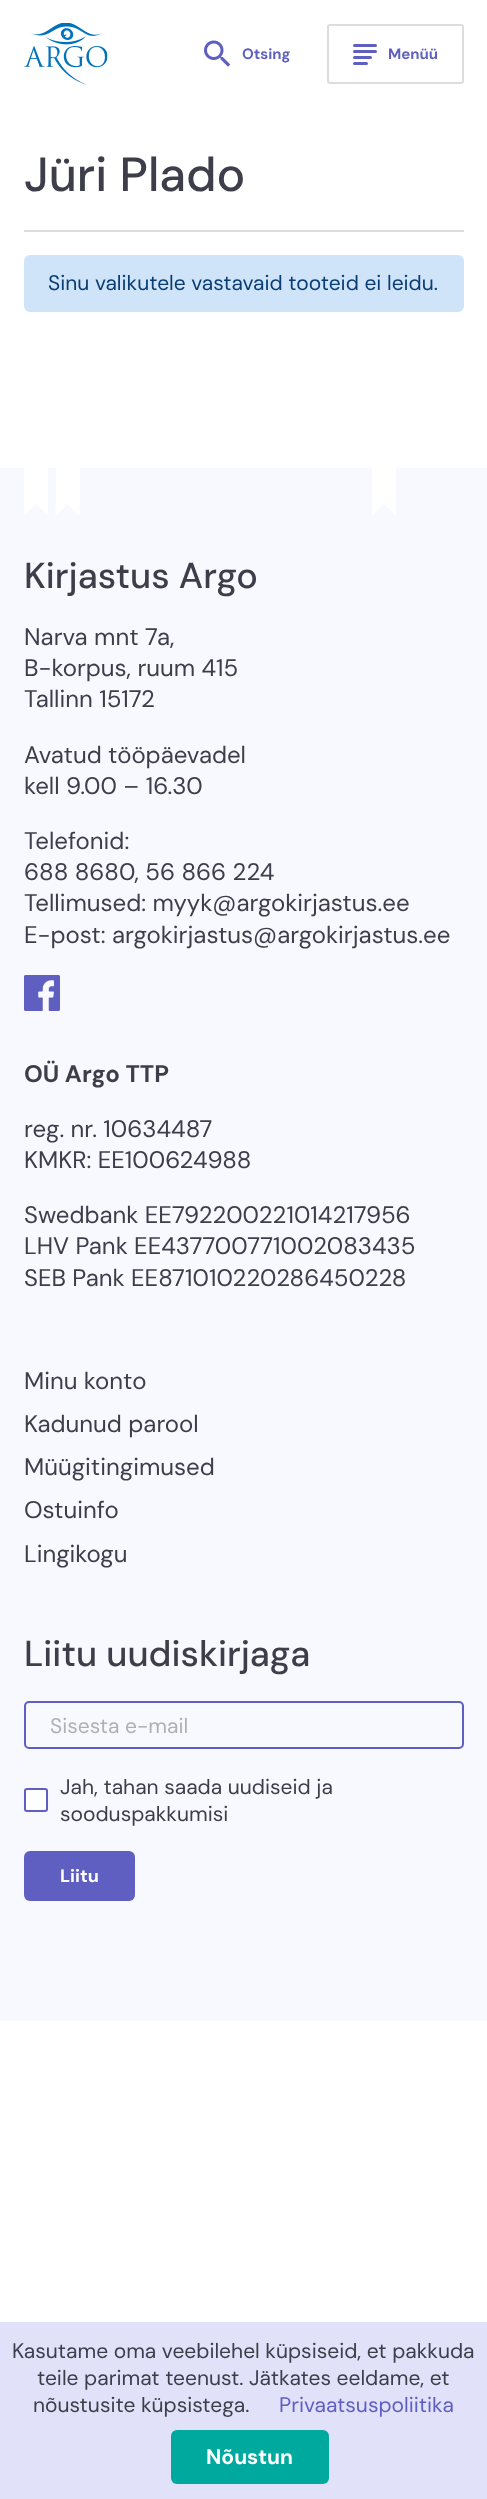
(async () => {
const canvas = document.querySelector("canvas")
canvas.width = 487
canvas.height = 2499
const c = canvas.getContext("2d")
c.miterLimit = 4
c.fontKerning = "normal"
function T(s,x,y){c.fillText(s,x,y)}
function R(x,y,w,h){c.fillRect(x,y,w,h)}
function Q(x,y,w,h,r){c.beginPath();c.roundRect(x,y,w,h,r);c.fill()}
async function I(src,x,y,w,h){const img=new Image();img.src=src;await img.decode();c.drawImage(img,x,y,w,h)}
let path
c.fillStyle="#fff"
R(0,0,487,2499)
await I("1.png",24,23,84,62)
await I("2.png",204,40,27,27)
c.font="bold 15px DM Sans"
c.fillStyle="#5f5fc2"
T("Otsing",242,59)
c.beginPath()
c.roundRect(328,25,135,58,2)
c.strokeStyle="#ddd"
c.lineWidth=2
c.stroke()
Q(353,44,24,3,1.5)
Q(353,50,24,3,1.5)
Q(353,56,19,3,1.5)
Q(353,62,15,3,1.5)
T("Menüü",388,59)
c.font="500 48px DM Sans"
c.fillStyle="#3e3e4a"
T("Jüri Plado",24,191)
c.fillStyle="#ddd"
R(24,230,440,2)
c.fillStyle="#d0e4f9"
Q(24,255,440,57,6)
c.font="21px DM Sans"
c.fillStyle="#0a3d74"
T("Sinu valikutele vastavaid tooteid ei leidu.",48,290)
c.fillStyle="#f8f8ff"
R(0,468,487,1553)
c.fillStyle="#fff"
R(24,468,24,36)
path = new Path2D("M24 504h12l-12 12zm24 0v12l-12-12z")
c.fill(path)
R(56,468,24,36)
path = new Path2D("M55.5 504h12l-12 12z")
c.fill(path)
path = new Path2D("M79.5 504v12l-12-12z")
c.fill(path)
R(372,468,24,36)
path = new Path2D("M372 504h12l-12 12zm24 0v12l-12-12z")
c.fill(path)
c.font="500 36px DM Sans"
c.fillStyle="#3e3e4a"
T("Kirjastus Argo",24,588)
c.font="24px DM Sans"
T("Narva mnt 7a,",24,645)
T("B-korpus, ruum 415",24,676)
T("Tallinn 15172",24,707)
T("Avatud tööpäevadel",24,763)
T("kell 9.00 – 16.30",24,794)
T("Telefonid:",24,849)
T("688 8680, 56 866 224",24,880)
T("Tellimused: myyk@argokirjastus.ee",24,911)
T("E-post: argokirjastus@argokirjastus.ee",24,943)
await I("3.png",24,975,36,36)
c.font="bold 24px DM Sans"
T("OÜ Argo TTP",24,1082)
c.font="24px DM Sans"
T("reg. nr. 10634487",24,1137)
T("KMKR: EE100624988",24,1168)
T("Swedbank EE792200221014217956",24,1223)
T("LHV Pank EE437700771002083435",24,1254)
T("SEB Pank EE871010220286450228",24,1286)
T("Minu konto",24,1389)
T("Kadunud parool",24,1432)
T("Müügitingimused",24,1475)
T("Ostuinfo",24,1518)
T("Lingikogu",24,1562)
c.font="500 36px DM Sans"
T("Liitu uudiskirjaga",24,1666)
c.beginPath()
c.roundRect(25,1702,438,46,4)
c.strokeStyle="#5f5fc2"
c.stroke()
c.font="21px DM Sans"
c.fillStyle="#b0b0b0"
T("Sisesta e-mail",50,1733)
c.fillStyle="#fff"
c.beginPath()
c.roundRect(25,1789,22,22,2)
c.fill()
c.stroke()
c.fillStyle="#3e3e4a"
T("Jah, tahan saada uudiseid ja",60,1794)
T("sooduspakkumisi",60,1821)
c.fillStyle="#5f5fc2"
Q(24,1851,111,50,6)
c.font="bold 18px DM Sans"
c.fillStyle="#fff"
T("Liitu",60,1882)
c.fillStyle="#e1e1f9"
R(0,2322,487,177)
c.font="21px DM Sans"
c.fillStyle="#3e3e4a"
T("Kasutame oma veebilehel küpsiseid, et pakkuda",12,2358)
T("teile parimat teenust. Jätkates eeldame, et",37,2385)
T("nõustusite küpsistega.",33,2412)
c.fillStyle="#5f5fc2"
T("Privaatsuspoliitika",279,2412)
c.fillStyle="#00a99d"
Q(171,2430,158,54,6)
c.font="bold 21px DM Sans"
c.fillStyle="#fff"
T("Nõustun",206,2464)
})()
